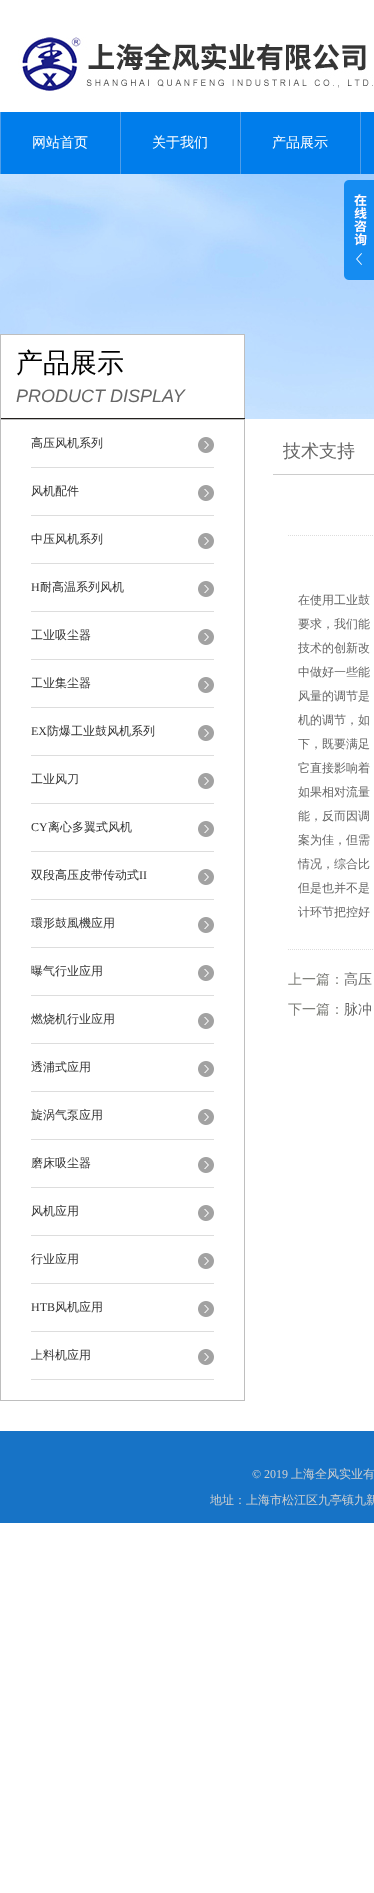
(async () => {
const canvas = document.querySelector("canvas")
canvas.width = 374
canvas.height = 1893
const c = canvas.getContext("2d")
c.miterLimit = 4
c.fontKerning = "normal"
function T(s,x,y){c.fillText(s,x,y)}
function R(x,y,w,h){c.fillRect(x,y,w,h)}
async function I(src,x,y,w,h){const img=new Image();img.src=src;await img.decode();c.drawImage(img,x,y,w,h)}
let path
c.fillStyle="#fff"
R(0,0,374,1893)
await I("1.png",18,37,355,54)
c.fillStyle="#007deb"
R(1,112,373,62)
await I("2.png",0,112,1,62)
c.font="500 14px WenQuanYi Zen Hei"
c.fillStyle="#fff"
T("网站首页",32,147)
await I("2.png",120,112,1,62)
T("关于我们",152,147)
await I("2.png",240,112,1,62)
T("产品展示",272,147)
await I("2.png",360,112,1,62)
await I("3.png",0,174,374,245)
await I("4.png",344,180,30,100)
R(1,335,243,83)
c.fillStyle="#bebebe"
R(0,334,245,1)
R(244,334,1,85)
c.fillStyle="#23201d"
R(0,418,245,1)
c.fillStyle="#bebebe"
R(0,334,1,85)
c.font="500 27px WenQuanYi Zen Hei"
c.fillStyle="#000"
T("产品展示",16,372)
c.font="italic 18px Liberation Sans"
c.fillStyle="#666"
T("PRODUCT DISPLAY",16,402)
c.strokeStyle="#bebebe"
c.strokeRect(.5,419.5,244,981)
await I("5.png",198,437,16,16)
c.fillStyle="#ddd"
R(31,467,183,1)
c.font="500 12px WenQuanYi Zen Hei"
c.fillStyle="#333"
T("高压风机系列",31,447)
await I("5.png",198,485,16,16)
c.fillStyle="#ddd"
R(31,515,183,1)
c.fillStyle="#333"
T("风机配件",31,495)
await I("5.png",198,533,16,16)
c.fillStyle="#ddd"
R(31,563,183,1)
c.fillStyle="#333"
T("中压风机系列",31,543)
await I("5.png",198,581,16,16)
c.fillStyle="#ddd"
R(31,611,183,1)
c.font="12px Liberation Serif"
c.fillStyle="#333"
T("H",31,591)
c.font="500 12px WenQuanYi Zen Hei"
T("耐高温系列风机",40,591)
await I("5.png",198,629,16,16)
c.fillStyle="#ddd"
R(31,659,183,1)
c.fillStyle="#333"
T("工业吸尘器",31,639)
await I("5.png",198,677,16,16)
c.fillStyle="#ddd"
R(31,707,183,1)
c.fillStyle="#333"
T("工业集尘器",31,687)
await I("5.png",198,725,16,16)
c.fillStyle="#ddd"
R(31,755,183,1)
c.font="12px Liberation Serif"
c.fillStyle="#333"
T("EX",31,735)
c.font="500 12px WenQuanYi Zen Hei"
T("防爆工业鼓风机系列",47,735)
await I("5.png",198,773,16,16)
c.fillStyle="#ddd"
R(31,803,183,1)
c.fillStyle="#333"
T("工业风刀",31,783)
await I("5.png",198,821,16,16)
c.fillStyle="#ddd"
R(31,851,183,1)
c.font="12px Liberation Serif"
c.fillStyle="#333"
T("CY",31,831)
c.font="500 12px WenQuanYi Zen Hei"
T("离心多翼式风机",48,831)
await I("5.png",198,869,16,16)
c.fillStyle="#ddd"
R(31,899,183,1)
c.fillStyle="#333"
T("双段高压皮带传动式",31,879)
c.font="12px Liberation Serif"
T("II",139,879)
await I("5.png",198,917,16,16)
c.fillStyle="#ddd"
R(31,947,183,1)
c.font="500 12px WenQuanYi Zen Hei"
c.fillStyle="#333"
T("環形鼓風機应用",31,927)
await I("5.png",198,965,16,16)
c.fillStyle="#ddd"
R(31,995,183,1)
c.fillStyle="#333"
T("曝气行业应用",31,975)
await I("5.png",198,1013,16,16)
c.fillStyle="#ddd"
R(31,1043,183,1)
c.fillStyle="#333"
T("燃烧机行业应用",31,1023)
await I("5.png",198,1061,16,16)
c.fillStyle="#ddd"
R(31,1091,183,1)
c.fillStyle="#333"
T("透浦式应用",31,1071)
await I("5.png",198,1109,16,16)
c.fillStyle="#ddd"
R(31,1139,183,1)
c.fillStyle="#333"
T("旋涡气泵应用",31,1119)
await I("5.png",198,1157,16,16)
c.fillStyle="#ddd"
R(31,1187,183,1)
c.fillStyle="#333"
T("磨床吸尘器",31,1167)
await I("5.png",198,1205,16,16)
c.fillStyle="#ddd"
R(31,1235,183,1)
c.fillStyle="#333"
T("风机应用",31,1215)
await I("5.png",198,1253,16,16)
c.fillStyle="#ddd"
R(31,1283,183,1)
c.fillStyle="#333"
T("行业应用",31,1263)
await I("5.png",198,1301,16,16)
c.fillStyle="#ddd"
R(31,1331,183,1)
c.font="12px Liberation Serif"
c.fillStyle="#333"
T("HTB",31,1311)
c.font="500 12px WenQuanYi Zen Hei"
T("风机应用",55,1311)
await I("5.png",198,1349,16,16)
c.fillStyle="#ddd"
R(31,1379,183,1)
c.fillStyle="#333"
T("上料机应用",31,1359)
c.fillStyle="#ccc"
R(273,474,101,1)
c.font="500 18px WenQuanYi Zen Hei"
c.fillStyle="#666"
T("技术支持",283,457)
path = new Path2D("M288 535.5h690")
c.strokeStyle="#ddd"
c.setLineDash([1,1])
c.stroke(path)
path = new Path2D("M288 949.5h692")
c.stroke(path)
c.font="500 12px WenQuanYi Zen Hei"
T("在使用工业鼓",298,604)
T("要求，我们能",298,628)
T("技术的创新改",298,652)
T("中做好一些能",298,676)
T("风量的调节是",298,700)
T("机的调节，如",298,724)
T("下，既要满足",298,748)
T("它直接影响着",298,772)
T("如果相对流量",298,796)
T("能，反而因调",298,820)
T("案为佳，但需",298,844)
T("情况，综合比",298,868)
T("但是也并不是",298,892)
T("计环节把控好",298,916)
c.font="500 14px WenQuanYi Zen Hei"
c.fillStyle="#80817c"
T("上一篇：",288,984)
c.fillStyle="#666"
T("高压",344,984)
c.fillStyle="#80817c"
T("下一篇：",288,1014)
c.fillStyle="#666"
T("脉冲",344,1014)
c.fillStyle="#1773c6"
R(0,1431,374,92)
c.font="12px Liberation Serif"
c.fillStyle="#cfcfcf"
T("© 2019",252,1478)
c.font="500 12px WenQuanYi Zen Hei"
T("上海全风实业有",291,1478)
T("地址：上海市松江区九亭镇九新",210,1504)
})()
